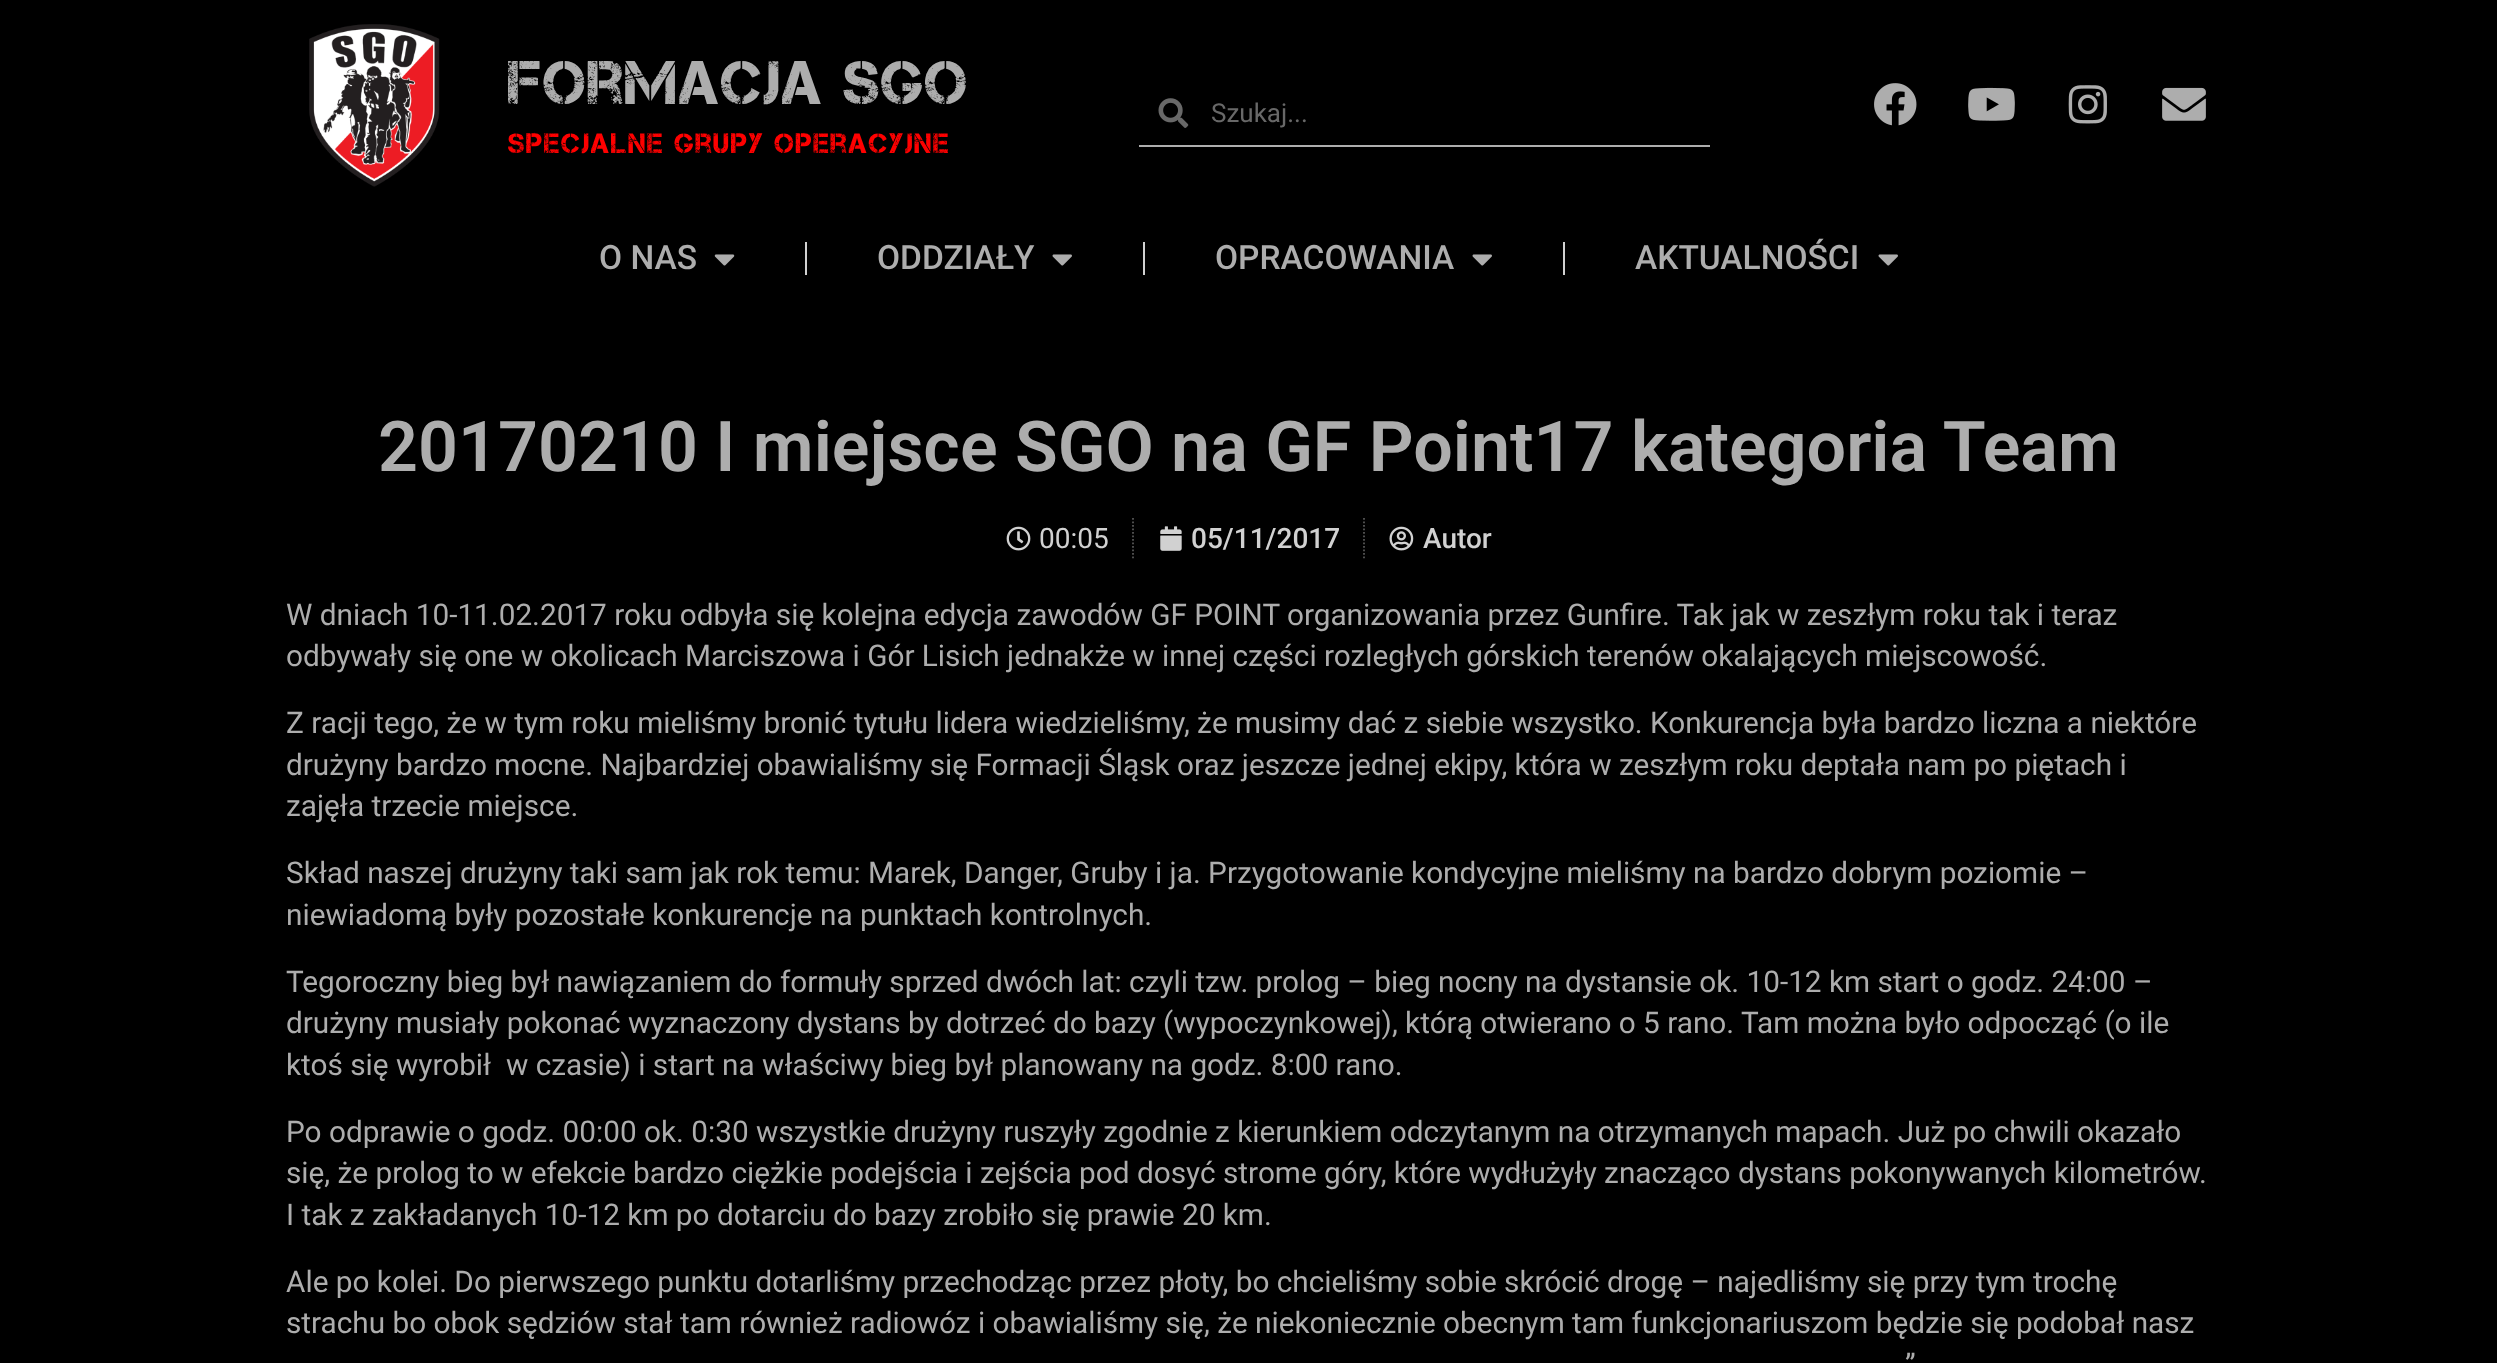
(async () => {
const canvas = document.querySelector("canvas")
canvas.width = 2497
canvas.height = 1363
const c = canvas.getContext("2d")
c.miterLimit = 4
c.fontKerning = "normal"
function T(s,x,y){c.fillText(s,x,y)}
function R(x,y,w,h){c.fillRect(x,y,w,h)}
async function I(src,x,y,w,h){const img=new Image();img.src=src;await img.decode();c.drawImage(img,x,y,w,h)}
let path
c.fillStyle="#000"
R(0,0,2497,1363)
await I("1.png",309,24,131,163)
c.letterSpacing="1.75px"
c.font="61.25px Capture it"
c.fillStyle="#adadad"
T("Formacja SGO",508,104)
c.font="28px Capture it"
c.fillStyle="#f00"
T("Specjalne grupy operacyjne",508,153)
c.fillStyle="#adadad"
R(1139,145,571,2)
await I("2.png",1158,98,31,30)
c.letterSpacing="0px"
c.font="26px Roboto"
c.fillStyle="#686868"
T("Szukaj...",1211,122)
await I("3.png",1874,83,43,43)
await I("4.png",1968,87,47,34)
await I("5.png",2068,85,39,39)
await I("6.png",2162,87,44,34)
c.font="500 33.5px Roboto"
c.fillStyle="#adadad"
T("O NAS",599,269)
await I("7.png",714,254,21,12)
c.fillStyle="#d1d1d1"
R(805,242,2,33)
c.fillStyle="#adadad"
T("ODDZIAŁY",877,269)
await I("8.png",1052,254,20,12)
c.fillStyle="#d1d1d1"
R(1143,242,2,33)
c.fillStyle="#adadad"
T("OPRACOWANIA",1215,269)
await I("8.png",1472,254,20,12)
c.fillStyle="#d1d1d1"
R(1563,242,2,33)
c.fillStyle="#adadad"
T("AKTUALNOŚCI",1635,269)
await I("8.png",1878,254,20,12)
c.font="600 70px Roboto"
T("20170210 I miejsce SGO na GF Point17 kategoria Team",378,471)
await I("9.png",1006,526,25,25)
c.font="28px Roboto"
c.fillStyle="#d1d1d1"
T("00:05",1039,548)
path = new Path2D("M1133 518v42")
c.strokeStyle="#565656"
c.lineWidth=1.8
c.setLineDash([1.75,1.75])
c.stroke(path)
await I("10.png",1160,526,22,25)
c.font="500 28px Roboto"
T("05/11/2017",1191,548)
path = new Path2D("M1364 518v42")
c.stroke(path)
await I("11.png",1389,526,25,25)
T("Autor",1423,548)
c.font="29.75px Roboto"
c.fillStyle="#adadad"
T("W dniach 10-11.02.2017 roku odbyła się kolejna edycja zawodów GF POINT organizowania przez Gunfire. Tak jak w zeszłym roku tak i teraz",286,625)
T("odbywały się one w okolicach Marciszowa i Gór Lisich jednakże w innej części rozległych górskich terenów okalających miejscowość.",286,666)
T("Z racji tego, że w tym roku mieliśmy bronić tytułu lidera wiedzieliśmy, że musimy dać z siebie wszystko. Konkurencja była bardzo liczna a niektóre",286,733)
T("drużyny bardzo mocne. Najbardziej obawialiśmy się Formacji Śląsk oraz jeszcze jednej ekipy, która w zeszłym roku deptała nam po piętach i",286,775)
T("zajęła trzecie miejsce.",286,816)
T("Skład naszej drużyny taki sam jak rok temu: Marek, Danger, Gruby i ja. Przygotowanie kondycyjne mieliśmy na bardzo dobrym poziomie –",286,883)
T("niewiadomą były pozostałe konkurencje na punktach kontrolnych.",286,925)
T("Tegoroczny bieg był nawiązaniem do formuły sprzed dwóch lat: czyli tzw. prolog – bieg nocny na dystansie ok. 10-12 km start o godz. 24:00 –",286,992)
T("drużyny musiały pokonać wyznaczony dystans by dotrzeć do bazy (wypoczynkowej), którą otwierano o 5 rano. Tam można było odpocząć (o ile",286,1033)
T("ktoś się wyrobił  w czasie) i start na właściwy bieg był planowany na godz. 8:00 rano.",286,1075)
T("Po odprawie o godz. 00:00 ok. 0:30 wszystkie drużyny ruszyły zgodnie z kierunkiem odczytanym na otrzymanych mapach. Już po chwili okazało",286,1142)
T("się, że prolog to w efekcie bardzo ciężkie podejścia i zejścia pod dosyć strome góry, które wydłużyły znacząco dystans pokonywanych kilometrów.",286,1183)
T("I tak z zakładanych 10-12 km po dotarciu do bazy zrobiło się prawie 20 km.",286,1225)
T("Ale po kolei. Do pierwszego punktu dotarliśmy przechodząc przez płoty, bo chcieliśmy sobie skrócić drogę – najedliśmy się przy tym trochę",286,1292)
T("strachu bo obok sędziów stał tam również radiowóz i obawialiśmy się, że niekoniecznie obecnym tam funkcjonariuszom będzie się podobał nasz",286,1333)
T("”",1905,1375)
})()
